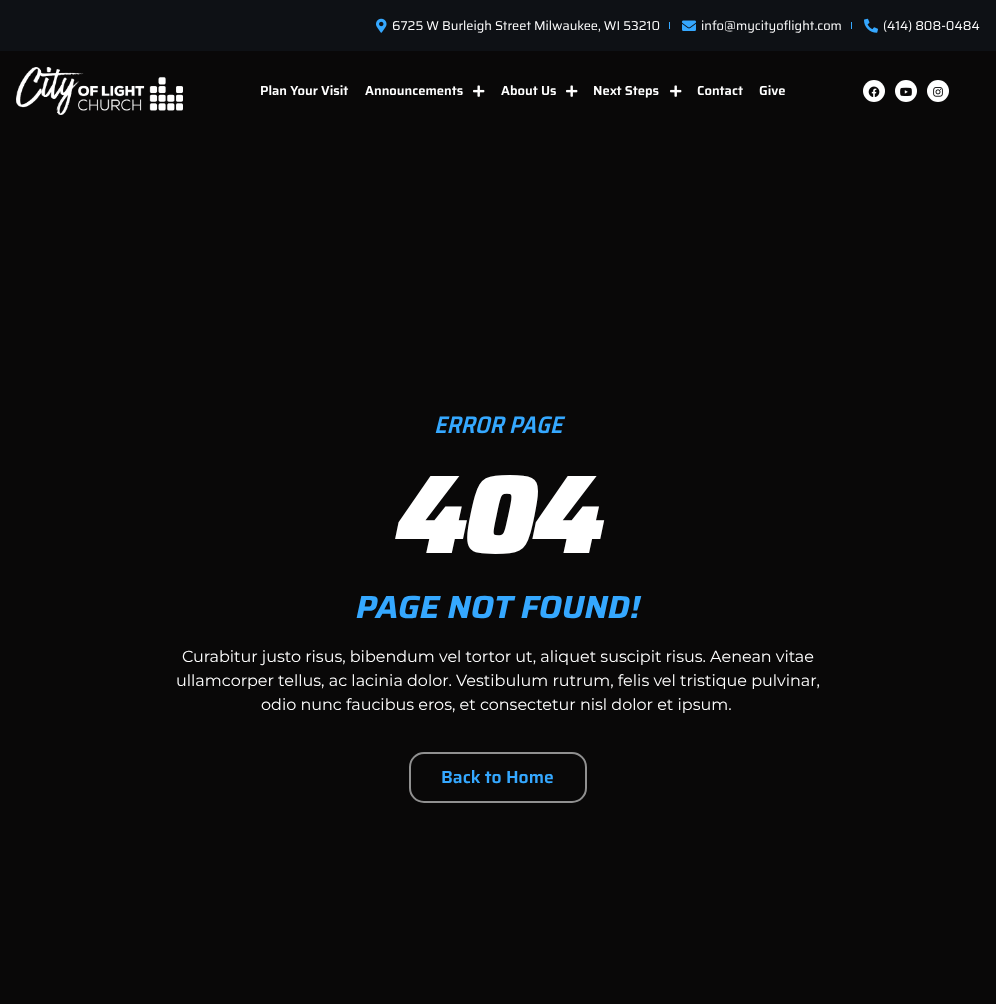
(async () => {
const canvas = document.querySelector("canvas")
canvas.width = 996
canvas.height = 1004
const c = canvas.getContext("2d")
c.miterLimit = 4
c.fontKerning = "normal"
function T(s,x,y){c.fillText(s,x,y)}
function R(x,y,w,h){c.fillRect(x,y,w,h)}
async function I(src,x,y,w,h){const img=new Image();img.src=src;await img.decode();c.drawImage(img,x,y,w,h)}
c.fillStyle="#090808"
R(0,0,996,1004)
c.fillStyle="#0e1115"
R(0,0,996,51)
await I("1.png",376,18,11,15)
c.font="12.8px Saira"
c.fillStyle="#fff"
T("6725 W Burleigh Street Milwaukee, WI 53210",392,30)
c.fillStyle="#35a8ff"
R(669,22,1,7)
await I("2.png",682,20,14,11)
c.fillStyle="#fff"
T("info@mycityoflight.com",701,30)
c.fillStyle="#35a8ff"
R(851,22,1,7)
await I("3.png",864,18,14,15)
c.fillStyle="#fff"
T("(414) 808-0484",883,30)
await I("4.png",16,67,167,48)
c.font="600 13px Saira"
T("Plan Your Visit",260,95)
T("Announcements",365,95)
await I("5.png",473,85,12,12)
T("About Us",501,95)
await I("5.png",566,85,12,12)
T("Next Steps",593,95)
await I("5.png",670,85,12,12)
T("Contact",697,95)
T("Give",759,95)
c.beginPath()
c.arc(874,91,11,0,7)
c.fill()
await I("6.png",868,86,12,11)
c.beginPath()
c.arc(906,91,11,0,7)
c.fill()
await I("7.png",900,87,12,9)
c.beginPath()
c.arc(938,91,11,0,7)
c.fill()
await I("8.png",933,87,10,10)
await I("9.png",435,416,131,18)
c.letterSpacing="-5px"
c.font="italic 900 112px Saira"
T("404",395,553)
c.letterSpacing="0px"
c.font="italic bold 32px Saira"
c.fillStyle="#35a8ff"
T("PAGE NOT FOUND!",356,618)
c.font="16px Montserrat"
c.fillStyle="#fff"
T("Curabitur justo risus, bibendum vel tortor ut, aliquet suscipit risus. Aenean vitae",182,662)
T("ullamcorper tellus, ac lacinia dolor. Vestibulum rutrum, felis vel tristique pulvinar,",176,686)
T("odio nunc faucibus eros, et consectetur nisl dolor et ipsum.",261,710)
c.beginPath()
c.roundRect(410,753,176,49,14)
c.strokeStyle="#909090"
c.lineWidth=2
c.stroke()
c.font="600 17.5px Saira"
c.fillStyle="#35a8ff"
T("Back to Home",441,783)
})()
